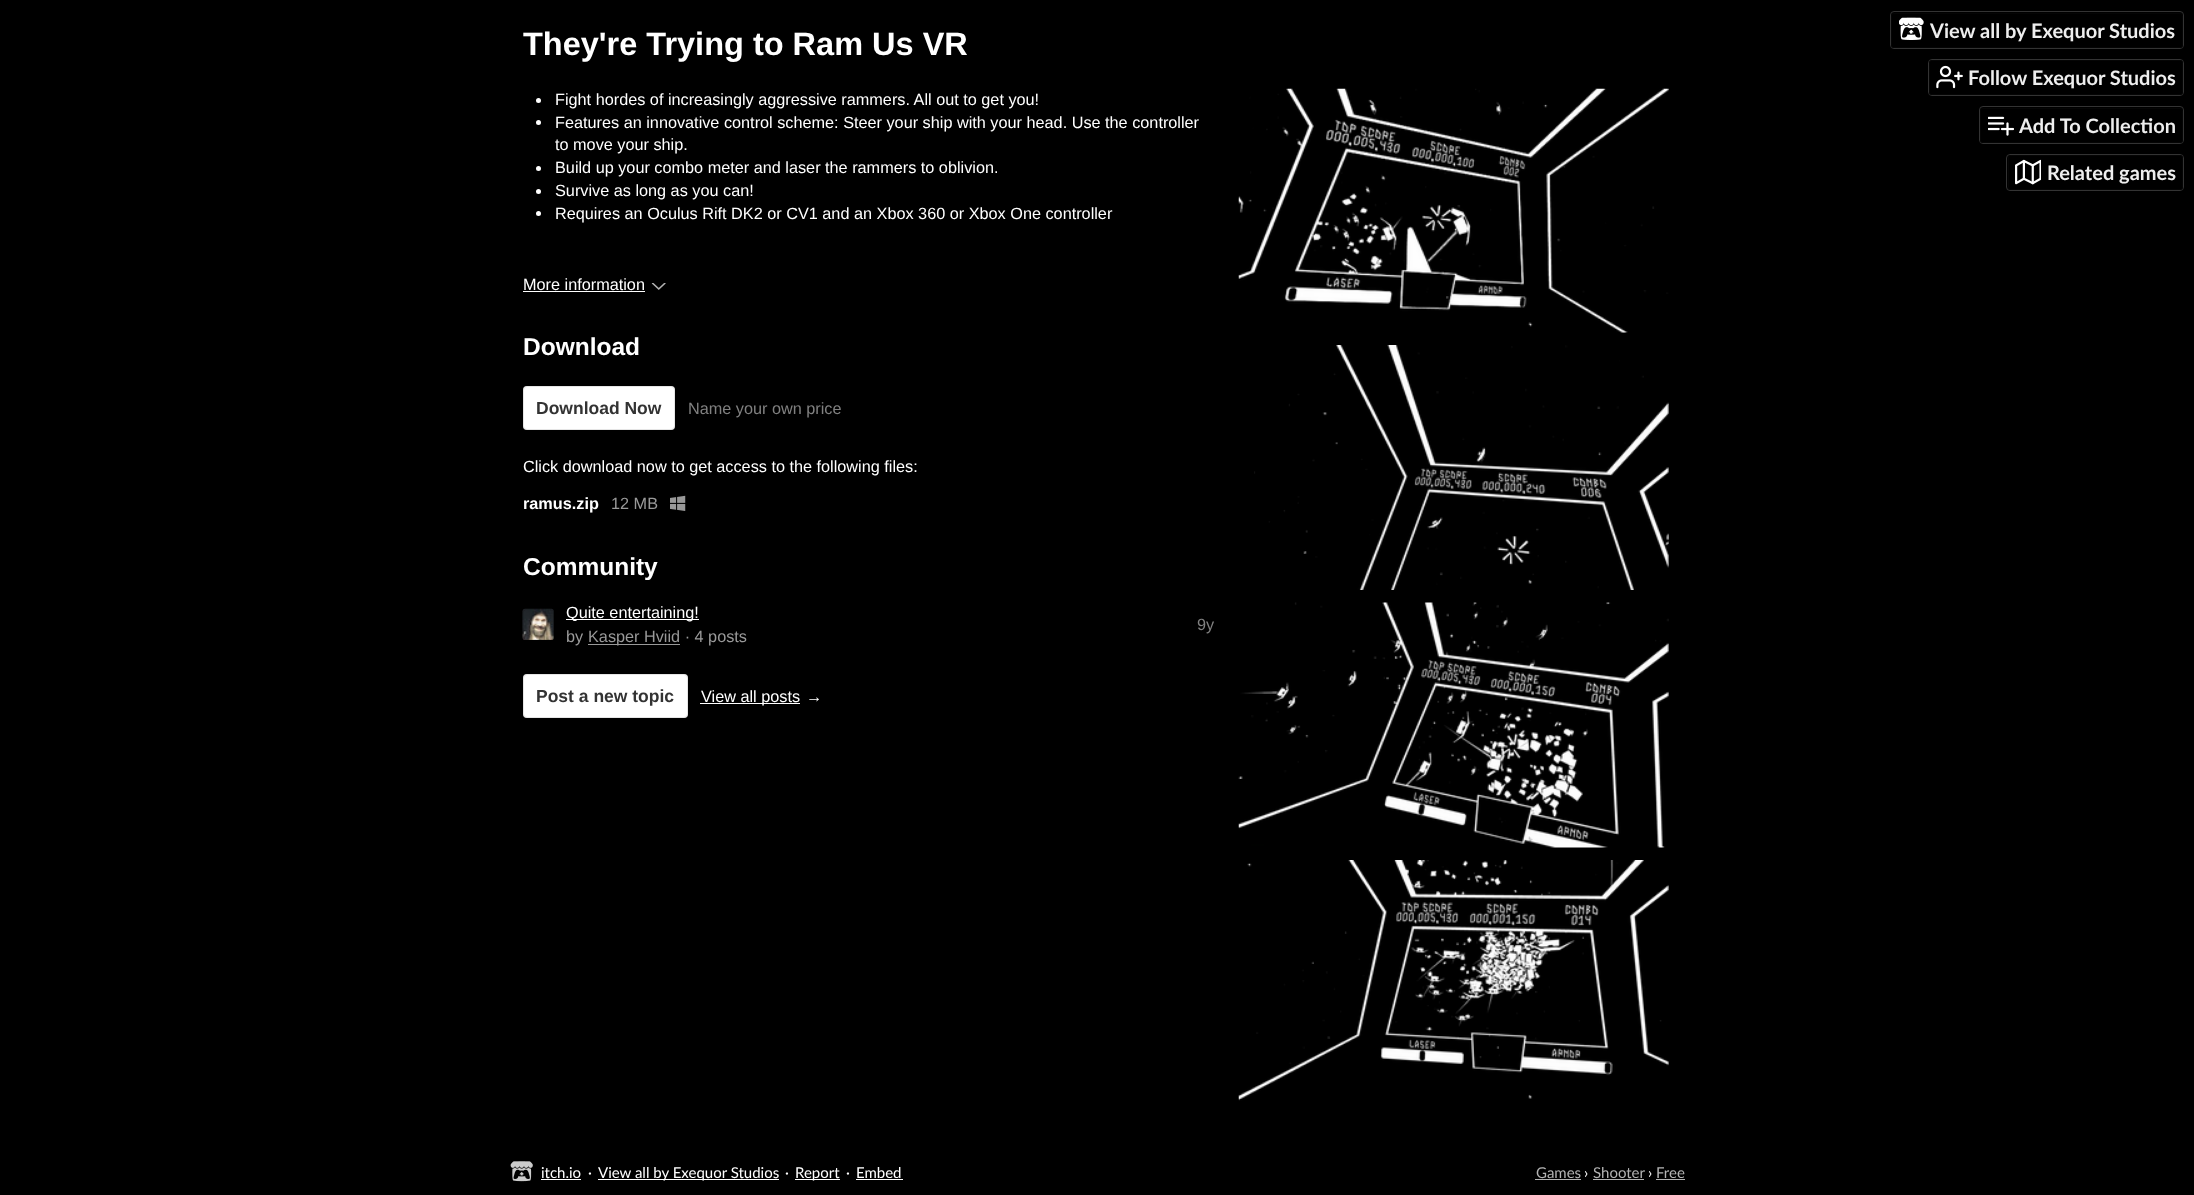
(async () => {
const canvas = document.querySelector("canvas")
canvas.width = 2194
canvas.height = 1195
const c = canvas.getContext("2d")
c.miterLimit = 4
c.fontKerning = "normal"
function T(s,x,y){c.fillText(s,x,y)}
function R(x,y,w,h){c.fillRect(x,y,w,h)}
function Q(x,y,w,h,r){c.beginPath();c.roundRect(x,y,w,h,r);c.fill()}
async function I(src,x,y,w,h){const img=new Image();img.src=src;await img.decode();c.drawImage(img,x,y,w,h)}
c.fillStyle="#000"
R(0,0,2194,1195)
c.font="bold 32.5px Liberation Sans"
c.fillStyle="#fff"
T("They're Trying to Ram Us VR",523,55)
c.beginPath()
c.arc(538.5,100.5,2.5,0,7)
c.fill()
c.font="16.25px Liberation Sans"
T("Fight hordes of increasingly aggressive rammers. All out to get you!",555,105)
c.beginPath()
c.arc(538.5,122.5,2.5,0,7)
c.fill()
T("Features an innovative control scheme: Steer your ship with your head. Use the controller",555,128)
T("to move your ship.",555,150)
c.beginPath()
c.arc(538.5,168.5,2.5,0,7)
c.fill()
T("Build up your combo meter and laser the rammers to oblivion.",555,173)
c.beginPath()
c.arc(538.5,191.5,2.5,0,7)
c.fill()
T("Survive as long as you can!",555,196)
c.beginPath()
c.arc(538.5,213.5,2.5,0,7)
c.fill()
T("Requires an Oculus Rift DK2 or CV1 and an Xbox 360 or Xbox One controller",555,219)
T("More information",523,290)
R(523,291,122,1)
await I("1.png",651,283,15,7)
c.font="bold 24.5px Liberation Sans"
T("Download",523,355)
Q(523,386,152,44,4)
c.beginPath()
c.roundRect(523.5,386.5,151,43,3.5)
c.strokeStyle="#0000001a"
c.stroke()
c.font="bold 17.5px Liberation Sans"
c.fillStyle="#333"
T("Download Now",536,414)
c.font="16.25px Liberation Sans"
c.fillStyle="#808080"
T("Name your own price",688,414)
c.fillStyle="#fff"
T("Click download now to get access to the following files:",523,472)
c.font="bold 16.25px Liberation Sans"
T("ramus.zip",523,509)
c.font="16.25px Liberation Sans"
c.fillStyle="#999"
T("12 MB",611,509)
await I("2.png",670,495,16,16)
c.font="bold 24.5px Liberation Sans"
c.fillStyle="#fff"
T("Community",523,575)
await I("3.png",522,608,32,32)
c.beginPath()
c.roundRect(523.5,609.5,30,30,2)
c.stroke()
R(566,619,133,1)
c.font="16.25px Liberation Sans"
T("Quite entertaining!",566,618)
c.fillStyle="#999"
T("by",566,642)
R(588,644,92,1)
T("Kasper Hviid · 4 posts",588,642)
c.fillStyle="#808080"
T("9y",1197,630)
c.fillStyle="#fff"
Q(523,674,165,44,4)
c.beginPath()
c.roundRect(523.5,674.5,164,43,3.5)
c.stroke()
c.font="bold 17.5px Liberation Sans"
c.fillStyle="#333"
T("Post a new topic",536,702)
c.fillStyle="#fff"
R(700,703,100,1)
c.font="16.25px Liberation Sans"
T("View all posts",701,702)
T("→",806,702)
await I("4.png",1238,88,431,245)
await I("5.png",1254,345,415,245)
await I("6.png",1238,602,431,246)
await I("7.png",1238,860,431,241)
await I("8.png",510,1161,23,21)
c.font="15px Lato"
T("itch.io",541,1178)
R(541,1179,40,1)
T("·",588,1178)
R(598,1179,181,1)
T("View all by Exequor Studios",598,1178)
T("·",785,1178)
R(795,1179,45,1)
T("Report",795,1178)
T("·",846,1178)
T("Embed",856,1178)
R(856,1179,47,1)
c.fillStyle="#b3b3b3"
T("Games",1536,1178)
R(1535,1179,46,1)
c.fillStyle="#fff"
T("›",1584,1178)
c.fillStyle="#b3b3b3"
T("Shooter",1593,1178)
R(1593,1179,51,1)
c.fillStyle="#fff"
T("›",1648,1178)
c.fillStyle="#b3b3b3"
T("Free",1656,1178)
R(1656,1179,29,1)
c.beginPath()
c.roundRect(1890.5,11.5,293,37,3.5)
c.strokeStyle="#333"
c.stroke()
c.fillStyle="#00000099"
Q(1891,13,292,35,2.5)
c.beginPath()
c.roundRect(1891.5,13.5,291,34,2)
c.strokeStyle="#0a0a0a80"
c.stroke()
await I("9.png",1899,17,25,23)
c.font="bold 20px Lato"
c.fillStyle="#eee"
T("View all by Exequor Studios",1930,38)
c.beginPath()
c.roundRect(1928.5,59.5,255,36,3.5)
c.strokeStyle="#333"
c.stroke()
c.fillStyle="#00000099"
Q(1929,60,254,35,2.5)
c.beginPath()
c.roundRect(1929.5,60.5,253,34,2)
c.strokeStyle="#0a0a0a80"
c.stroke()
await I("10.png",1936,65,27,24)
c.fillStyle="#eee"
T("Follow Exequor Studios",1968,85)
c.beginPath()
c.roundRect(1979.5,106.5,204,37,3.5)
c.strokeStyle="#333"
c.stroke()
c.fillStyle="#00000099"
Q(1980,108,203,35,2.5)
c.beginPath()
c.roundRect(1980.5,108.5,202,34,2)
c.strokeStyle="#0a0a0a80"
c.stroke()
await I("11.png",1988,116,26,20)
c.fillStyle="#eee"
T("Add To Collection",2019,133)
c.beginPath()
c.roundRect(2006.5,154.5,177,36,3.5)
c.strokeStyle="#333"
c.stroke()
c.fillStyle="#00000099"
Q(2008,155,175,35,2.5)
c.beginPath()
c.roundRect(2008.5,155.5,174,34,2)
c.strokeStyle="#0a0a0a80"
c.stroke()
await I("12.png",2015,159,26,26)
c.fillStyle="#eee"
T("Related games",2047,180)
})()
